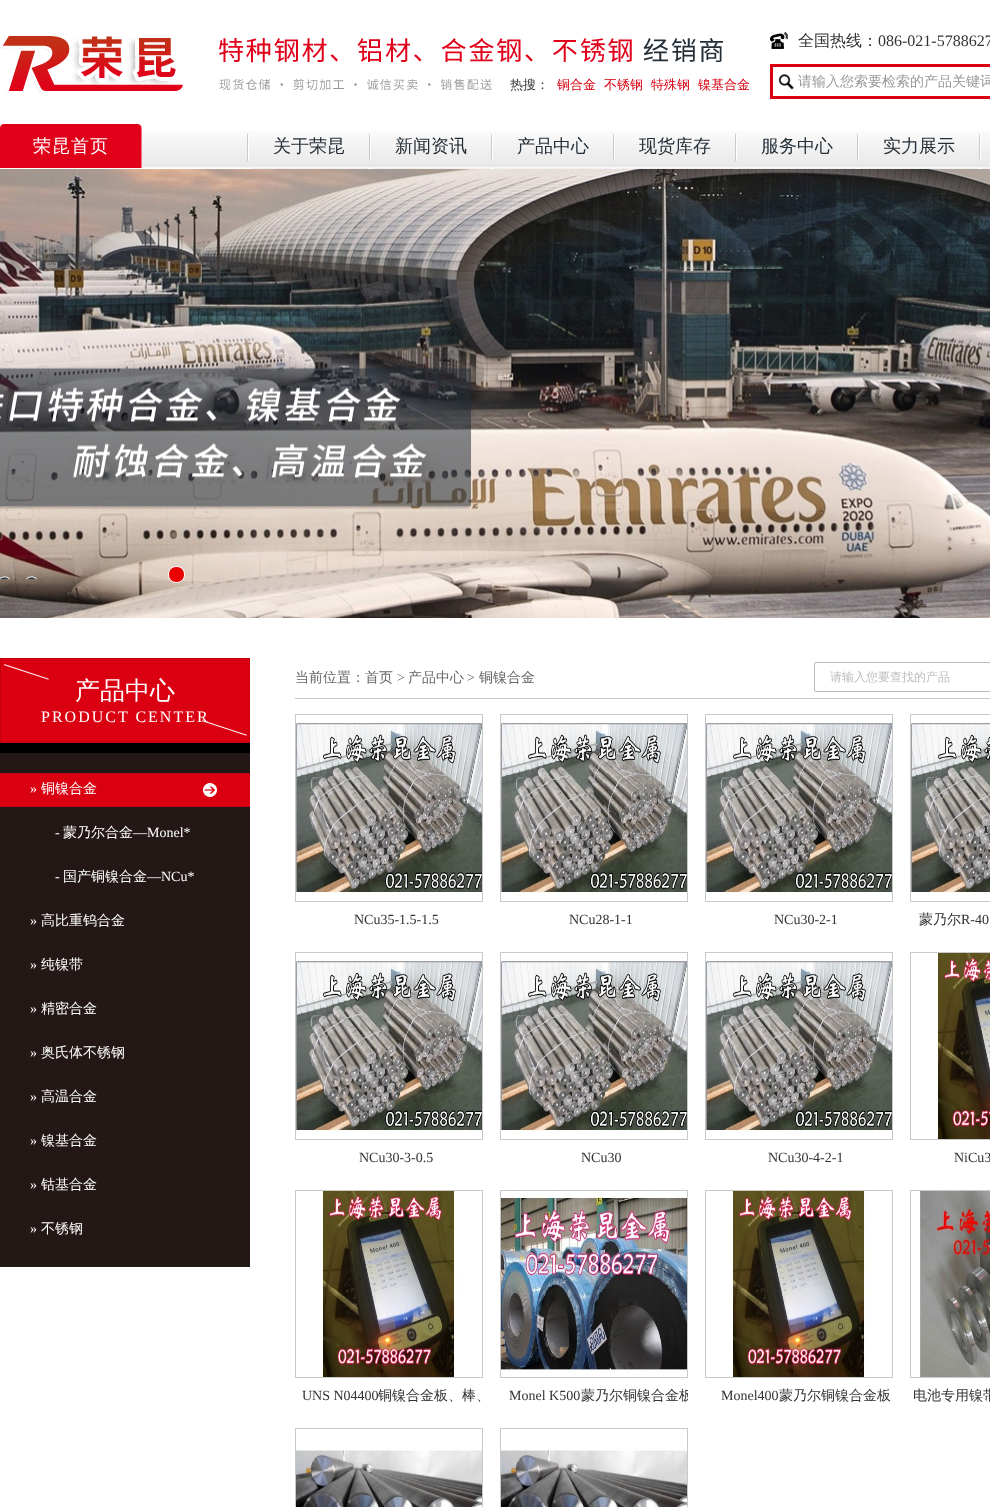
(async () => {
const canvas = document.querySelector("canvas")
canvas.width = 990
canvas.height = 1507
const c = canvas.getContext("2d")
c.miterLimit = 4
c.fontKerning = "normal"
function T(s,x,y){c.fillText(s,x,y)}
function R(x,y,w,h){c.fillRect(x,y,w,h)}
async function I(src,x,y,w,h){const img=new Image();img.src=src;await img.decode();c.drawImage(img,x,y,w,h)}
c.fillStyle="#fff"
R(0,0,990,1507)
await I("1.png",0,36,183,58)
await I("2.png",219,38,504,52)
await I("3.png",770,32,18,17)
c.font="500 16px WenQuanYi Zen Hei"
c.fillStyle="#333"
T("全国热线：",798,46)
c.font="16px Liberation Serif"
T("086-021-5788627",878,46)
c.font="500 13px WenQuanYi Zen Hei"
T("热搜：",510,89)
c.fillStyle="#da0011"
T("铜合金",557,89)
T("不锈钢",604,89)
T("特殊钢",651,89)
T("镍基合金",698,89)
R(770,64,220,35)
c.fillStyle="#fff"
R(773,67,217,29)
await I("4.png",778,74,16,16)
c.font="500 14px WenQuanYi Zen Hei"
c.fillStyle="#999"
T("请输入您索要检索的产品关键词",798,86)
await I("5.png",142,131,848,37)
await I("6.png",0,124,142,44)
c.letterSpacing="1px"
c.font="500 18px WenQuanYi Zen Hei"
c.fillStyle="#fff"
T("荣昆首页",33,152)
await I("7.png",247,134,2,27)
c.fillStyle="#f1f1f1"
R(250,168,118,1)
c.letterSpacing="0px"
c.fillStyle="#242e37"
T("关于荣昆",273,152)
await I("7.png",369,134,2,27)
c.fillStyle="#f1f1f1"
R(372,168,118,1)
c.fillStyle="#242e37"
T("新闻资讯",395,152)
await I("7.png",491,134,2,27)
c.fillStyle="#f1f1f1"
R(494,168,118,1)
c.fillStyle="#242e37"
T("产品中心",517,152)
await I("7.png",613,134,2,27)
c.fillStyle="#f1f1f1"
R(616,168,118,1)
c.fillStyle="#242e37"
T("现货库存",639,152)
await I("7.png",735,134,2,27)
c.fillStyle="#f1f1f1"
R(738,168,118,1)
c.fillStyle="#242e37"
T("服务中心",761,152)
await I("7.png",857,134,2,27)
c.fillStyle="#f1f1f1"
R(860,168,118,1)
c.fillStyle="#242e37"
T("实力展示",883,152)
await I("7.png",979,134,2,27)
c.fillStyle="#f1f1f1"
R(982,168,8,1)
await I("8.png",0,169,990,449)
c.fillStyle="#ea0000"
c.beginPath()
c.roundRect(168.5,566.5,16,16,7.5)
c.fill()
c.strokeStyle="#fff"
c.stroke()
await I("9.png",0,658,250,85)
c.fillStyle="#000"
R(0,743,250,10)
c.font="500 25px WenQuanYi Zen Hei"
c.fillStyle="#fff"
T("产品中心",75,699)
c.letterSpacing="2px"
c.font="16px Liberation Serif"
T("PRODUCT CENTER",41,722)
c.fillStyle="#231816"
R(0,753,250,514)
c.fillStyle="#da0011"
R(0,774,250,32)
await I("10.png",203,783,14,14)
c.fillStyle="#c3000f"
R(0,773,250,1)
R(0,806,250,1)
c.letterSpacing="0px"
c.font="14px Liberation Serif"
c.fillStyle="#fff"
T("»",30,793)
c.font="500 14px WenQuanYi Zen Hei"
T("铜镍合金",41,793)
c.font="14px Liberation Serif"
T("-",55,837)
c.font="500 14px WenQuanYi Zen Hei"
T("蒙乃尔合金",63,837)
c.font="14px Liberation Serif"
T("—Monel*",133,837)
T("-",55,881)
c.font="500 14px WenQuanYi Zen Hei"
T("国产铜镍合金",63,881)
c.font="14px Liberation Serif"
T("—NCu*",147,881)
T("»",30,925)
c.font="500 14px WenQuanYi Zen Hei"
T("高比重钨合金",41,925)
c.font="14px Liberation Serif"
T("»",30,969)
c.font="500 14px WenQuanYi Zen Hei"
T("纯镍带",41,969)
c.font="14px Liberation Serif"
T("»",30,1013)
c.font="500 14px WenQuanYi Zen Hei"
T("精密合金",41,1013)
c.font="14px Liberation Serif"
T("»",30,1057)
c.font="500 14px WenQuanYi Zen Hei"
T("奥氏体不锈钢",41,1057)
c.font="14px Liberation Serif"
T("»",30,1101)
c.font="500 14px WenQuanYi Zen Hei"
T("高温合金",41,1101)
c.font="14px Liberation Serif"
T("»",30,1145)
c.font="500 14px WenQuanYi Zen Hei"
T("镍基合金",41,1145)
c.font="14px Liberation Serif"
T("»",30,1189)
c.font="500 14px WenQuanYi Zen Hei"
T("钴基合金",41,1189)
c.font="14px Liberation Serif"
T("»",30,1233)
c.font="500 14px WenQuanYi Zen Hei"
T("不锈钢",41,1233)
c.fillStyle="#c7c7c7"
R(295,698,695,1)
c.fillStyle="#666"
T("当前位置：首页",295,682)
c.font="14px Liberation Serif"
T(">",397,682)
c.font="500 14px WenQuanYi Zen Hei"
T("产品中心",408,682)
c.font="14px Liberation Serif"
T(">",467,682)
c.font="500 14px WenQuanYi Zen Hei"
T("铜镍合金",479,682)
c.beginPath()
c.roundRect(814.5,662.5,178,29,1.5)
c.strokeStyle="#bbb"
c.stroke()
c.font="500 12px WenQuanYi Zen Hei"
c.fillStyle="#bdbdbd"
T("请输入您要查找的产品",830,681)
c.strokeStyle="#c9c9c9"
c.strokeRect(295.5,714.5,187,187)
await I("11.png",296,723,186,173)
c.font="14px Liberation Serif"
c.fillStyle="#333"
T("NCu35-1.5-1.5",354,924)
c.strokeRect(500.5,714.5,187,187)
await I("12.png",501,723,186,173)
T("NCu28-1-1",569,924)
c.strokeRect(705.5,714.5,187,187)
await I("12.png",706,723,186,173)
T("NCu30-2-1",774,924)
c.strokeRect(910.5,714.5,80,187)
await I("13.png",911,723,79,173)
c.font="500 14px WenQuanYi Zen Hei"
T("蒙乃尔",919,924)
c.font="14px Liberation Serif"
T("R-40",961,924)
c.strokeRect(295.5,952.5,187,187)
await I("11.png",296,961,186,173)
T("NCu30-3-0.5",359,1162)
c.strokeRect(500.5,952.5,187,187)
await I("12.png",501,961,186,173)
T("NCu30",581,1162)
c.strokeRect(705.5,952.5,187,187)
await I("12.png",706,961,186,173)
T("NCu30-4-2-1",768,1162)
c.strokeRect(910.5,952.5,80,187)
await I("14.png",934,953,56,186)
T("NiCu3",954,1162)
c.strokeRect(295.5,1190.5,187,187)
await I("15.png",319,1191,140,186)
T("UNS N04400",302,1400)
c.font="500 14px WenQuanYi Zen Hei"
T("铜镍合金板、棒、",378,1400)
c.strokeRect(500.5,1190.5,187,187)
await I("16.png",501,1191,186,182)
c.font="14px Liberation Serif"
T("Monel K500",509,1400)
c.save()
c.beginPath()
c.rect(500,1378,188,30)
c.clip()
c.font="500 14px WenQuanYi Zen Hei"
T("蒙乃尔铜镍合金板",581,1400)
c.restore()
c.strokeRect(705.5,1190.5,187,187)
await I("17.png",729,1191,140,186)
T("Monel400",721,1400)
c.font="500 14px WenQuanYi Zen Hei"
T("蒙乃尔铜镍合金板",779,1400)
c.strokeRect(910.5,1190.5,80,187)
await I("18.png",920,1191,70,186)
T("电池专用镍带",913,1400)
c.strokeRect(295.5,1428.5,187,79)
await I("19.png",296,1450,186,57)
c.strokeRect(500.5,1428.5,187,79)
await I("20.png",501,1450,186,57)
})()
